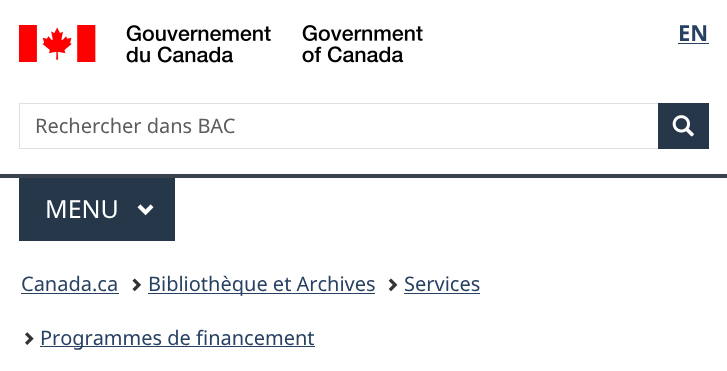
(async () => {
const canvas = document.querySelector("canvas")
canvas.width = 727
canvas.height = 371
const c = canvas.getContext("2d")
c.miterLimit = 4
c.fontKerning = "normal"
function T(s,x,y){c.fillText(s,x,y)}
function R(x,y,w,h){c.fillRect(x,y,w,h)}
async function I(src,x,y,w,h){const img=new Image();img.src=src;await img.decode();c.drawImage(img,x,y,w,h)}
c.fillStyle="#fff"
R(0,0,727,371)
await I("1.png",19,25,404,38)
c.font="bold 22px Noto Sans"
c.fillStyle="#284162"
T("EN",678,41)
R(678,43,31,1)
c.strokeStyle="#e0e0e0"
c.strokeRect(19.5,103.5,689,45)
c.font="20px Noto Sans"
c.fillStyle="#5c5c5c"
T("Rechercher dans BAC",35,133)
c.fillStyle="#26374a"
R(658,103,51,46)
await I("2.png",672,115,22,22)
c.fillStyle="#38414d"
R(0,174,727,4)
c.fillStyle="#26374a"
R(19,178,156,63)
c.font="25px Noto Sans"
c.fillStyle="#fff"
T("MENU",45,218)
await I("3.png",137,204,17,12)
c.font="20px Noto Sans"
c.fillStyle="#284162"
T("Canada.ca",21,291)
R(21,293,98,1)
await I("4.png",132,278,10,14)
R(148,293,227,1)
T("Bibliothèque et Archives",148,291)
await I("5.png",388,278,10,14)
T("Services",404,291)
R(404,293,76,1)
await I("6.png",25,332,9,13)
R(40,346,275,1)
T("Programmes de financement",40,345)
})()
